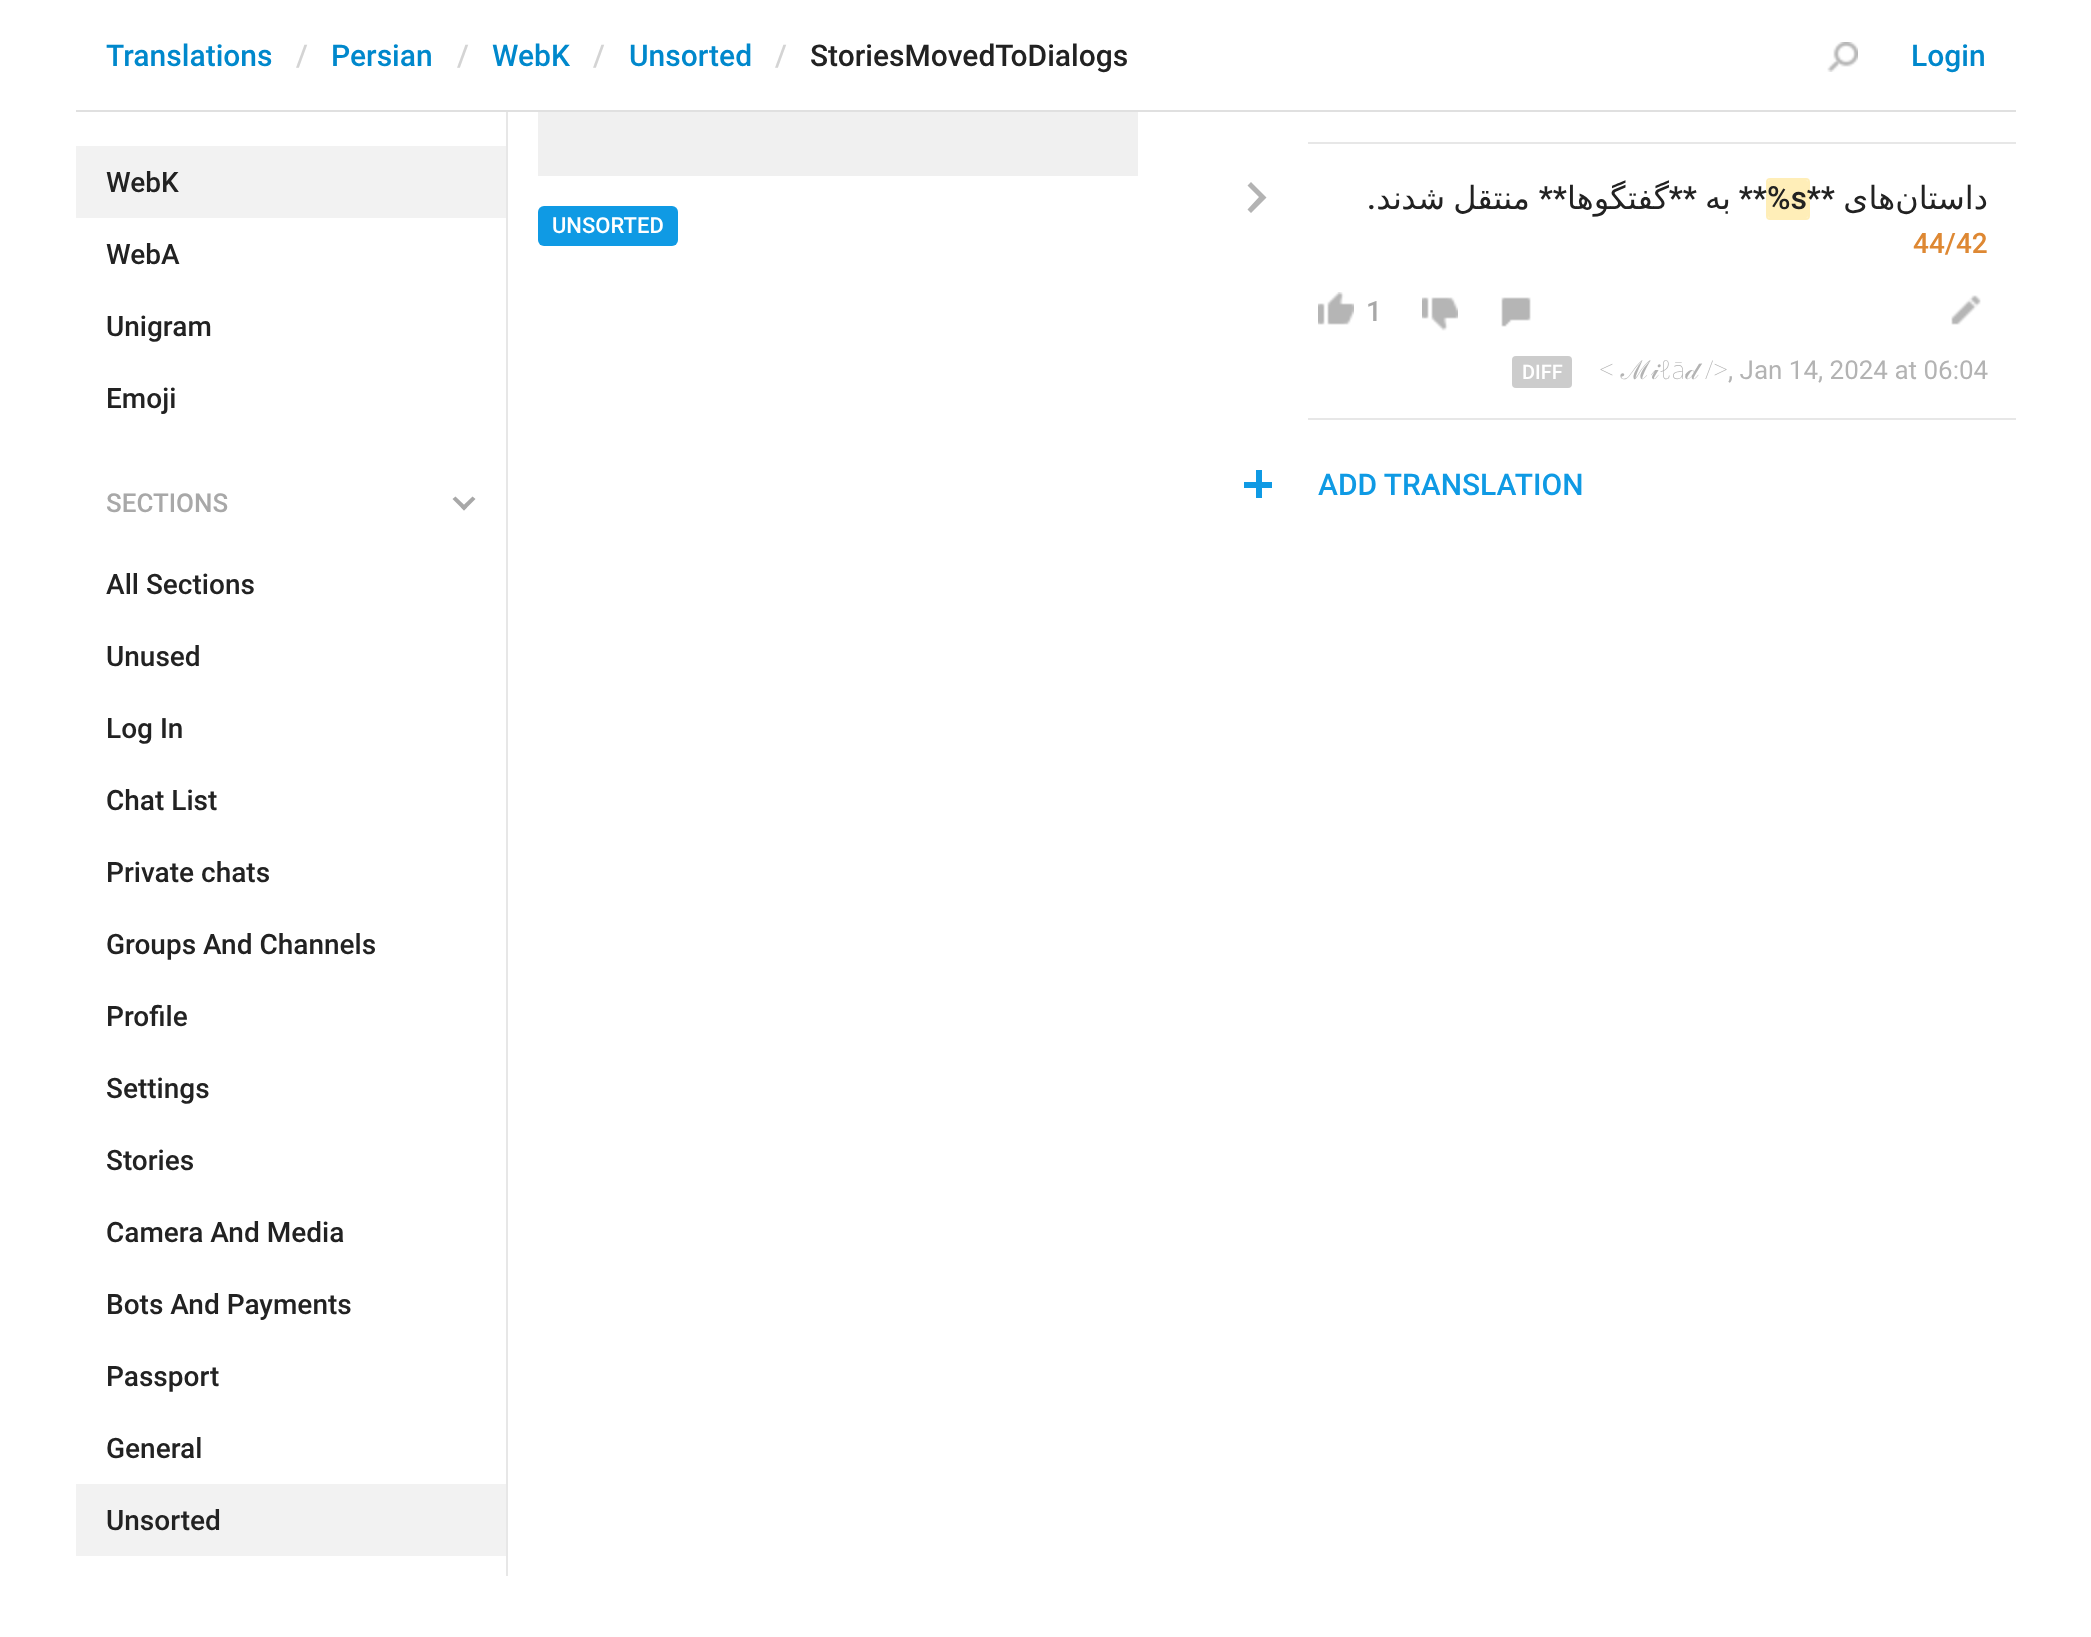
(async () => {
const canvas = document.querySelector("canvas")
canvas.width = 2091
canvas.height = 1637
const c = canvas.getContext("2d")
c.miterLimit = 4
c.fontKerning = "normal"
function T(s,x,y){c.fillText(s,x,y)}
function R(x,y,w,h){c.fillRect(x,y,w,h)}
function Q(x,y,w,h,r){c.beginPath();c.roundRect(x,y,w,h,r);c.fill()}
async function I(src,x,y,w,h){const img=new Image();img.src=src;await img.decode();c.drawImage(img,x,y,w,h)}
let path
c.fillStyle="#fff"
R(0,0,2091,1637)
c.fillStyle="#e0e0e0"
R(76,110,1940,2)
c.font="500 30px Roboto"
c.fillStyle="#08c"
T("Translations",106,66)
c.fillStyle="#d4d4d4"
T("/",296,66)
c.fillStyle="#08c"
T("Persian",331,66)
c.fillStyle="#d4d4d4"
T("/",457,66)
c.fillStyle="#08c"
T("WebK",492,66)
c.fillStyle="#d4d4d4"
T("/",593,66)
c.fillStyle="#08c"
T("Unsorted",629,66)
c.fillStyle="#d4d4d4"
T("/",775,66)
c.fillStyle="#222"
T("StoriesMovedToDialogs",810,66)
await I("1.png",1827,42,31,30)
c.fillStyle="#08c"
T("Login",1911,66)
c.fillStyle="#f2f2f2"
R(76,146,430,72)
c.font="500 28px Roboto"
c.fillStyle="#222"
T("WebK",106,192)
T("WebA",106,264)
T("Unigram",106,336)
T("Emoji",106,408)
c.font="500 26px Roboto"
c.fillStyle="#a8a8a8"
T("SECTIONS",106,512)
path = new Path2D("M464 510.5l-11.5-11.5l3-2.5l11.5 11z")
c.fill(path)
path = new Path2D("M464 510.5l-3-3l11.5-11l3 2.5z")
c.fill(path)
c.font="500 28px Roboto"
c.fillStyle="#222"
T("All Sections",106,594)
T("Unused",106,666)
T("Log In",106,738)
T("Chat List",106,810)
T("Private chats",106,882)
T("Groups And Channels",106,954)
T("Profile",106,1026)
T("Settings",106,1098)
T("Stories",106,1170)
T("Camera And Media",106,1242)
T("Bots And Payments",106,1314)
T("Passport",106,1386)
T("General",106,1458)
c.fillStyle="#f2f2f2"
R(76,1484,430,72)
c.fillStyle="#222"
T("Unsorted",106,1530)
c.fillStyle="#e7e7e7"
R(506,112,2,1464)
c.fillStyle="#f0f0f0"
R(538,112,600,64)
c.fillStyle="#0f9ae4"
Q(538,206,140,40,6)
c.font="500 22px Roboto"
c.fillStyle="#fff"
T("UNSORTED",552,233)
c.save()
c.beginPath()
c.rect(1188,0,828,422)
c.clip()
c.fillStyle="#e7e7e7"
path = new Path2D("M1308 142v2h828v-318h-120v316z")
c.fill(path)
path = new Path2D("M1308 418v2h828v-274h-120v272z")
c.fill(path)
c.restore()
c.fillStyle="#b3b3b3"
path = new Path2D("M1259 197l-11.5 12.5l3.5 3.5l15.5-15.5l-15.5-15.5l-3.5 3.5z")
c.fill(path)
c.direction="rtl"
c.font="500 32px Roboto"
c.fillStyle="#222"
T(".",1376,209)
c.font="32px DejaVu Sans"
T("ند",1402,209)
c.wordSpacing="-2px"
T("منتقل شد",1530,209)
c.wordSpacing="0px"
c.font="500 32px Roboto"
T("**",1567,209)
c.font="32px DejaVu Sans"
T("گفتگوها",1669,209)
c.font="500 32px Roboto"
T("**",1697,209)
c.font="32px DejaVu Sans"
T("به",1731,209)
c.beginPath()
c.roundRect(1767,179,42,40,3)
c.strokeStyle="#ffeeb8"
c.lineWidth=2
c.stroke()
c.font="500 32px Roboto"
T("**",1767,209)
c.fillStyle="#ffeeb8"
Q(1768,180,40,38,2)
c.direction="ltr"
c.fillStyle="#222"
T("%s",1767,209)
c.direction="rtl"
T("**",1835,209)
c.font="32px DejaVu Sans"
T("‌های",1895,209)
T("داستان",1988,209)
c.direction="ltr"
c.font="500 28px Roboto"
c.fillStyle="#de8833"
T("44/42",1913,253)
await I("2.png",1318,292,36,33)
c.fillStyle="#a8a8a8"
T("1",1366,321)
await I("3.png",1422,297,36,34)
await I("4.png",1501,297,30,30)
await I("5.png",1951,295,30,30)
c.fillStyle="#ccc"
Q(1512,356,60,32,4)
c.font="500 20px Roboto"
c.fillStyle="#fff"
T("DIFF",1522,379)
c.font="100 26px Noto Sans"
c.fillStyle="#b3b3b3"
T("< ℳ",1599,379)
c.font="26px FreeSerif"
T("𝒾",1651,379)
c.font="100 26px Noto Sans"
T("ℓā",1659,379)
c.font="26px FreeSerif"
T("𝒹",1685,379)
c.font="100 26px Noto Sans"
T("/>",1705,379)
c.font="26px Roboto"
T(", Jan 14, 2024 at 06:04",1728,379)
c.fillStyle="#0f9ae4"
R(1244,482,28,6)
R(1256,470,6,28)
c.font="500 30px Roboto"
T("ADD TRANSLATION",1318,495)
})()
